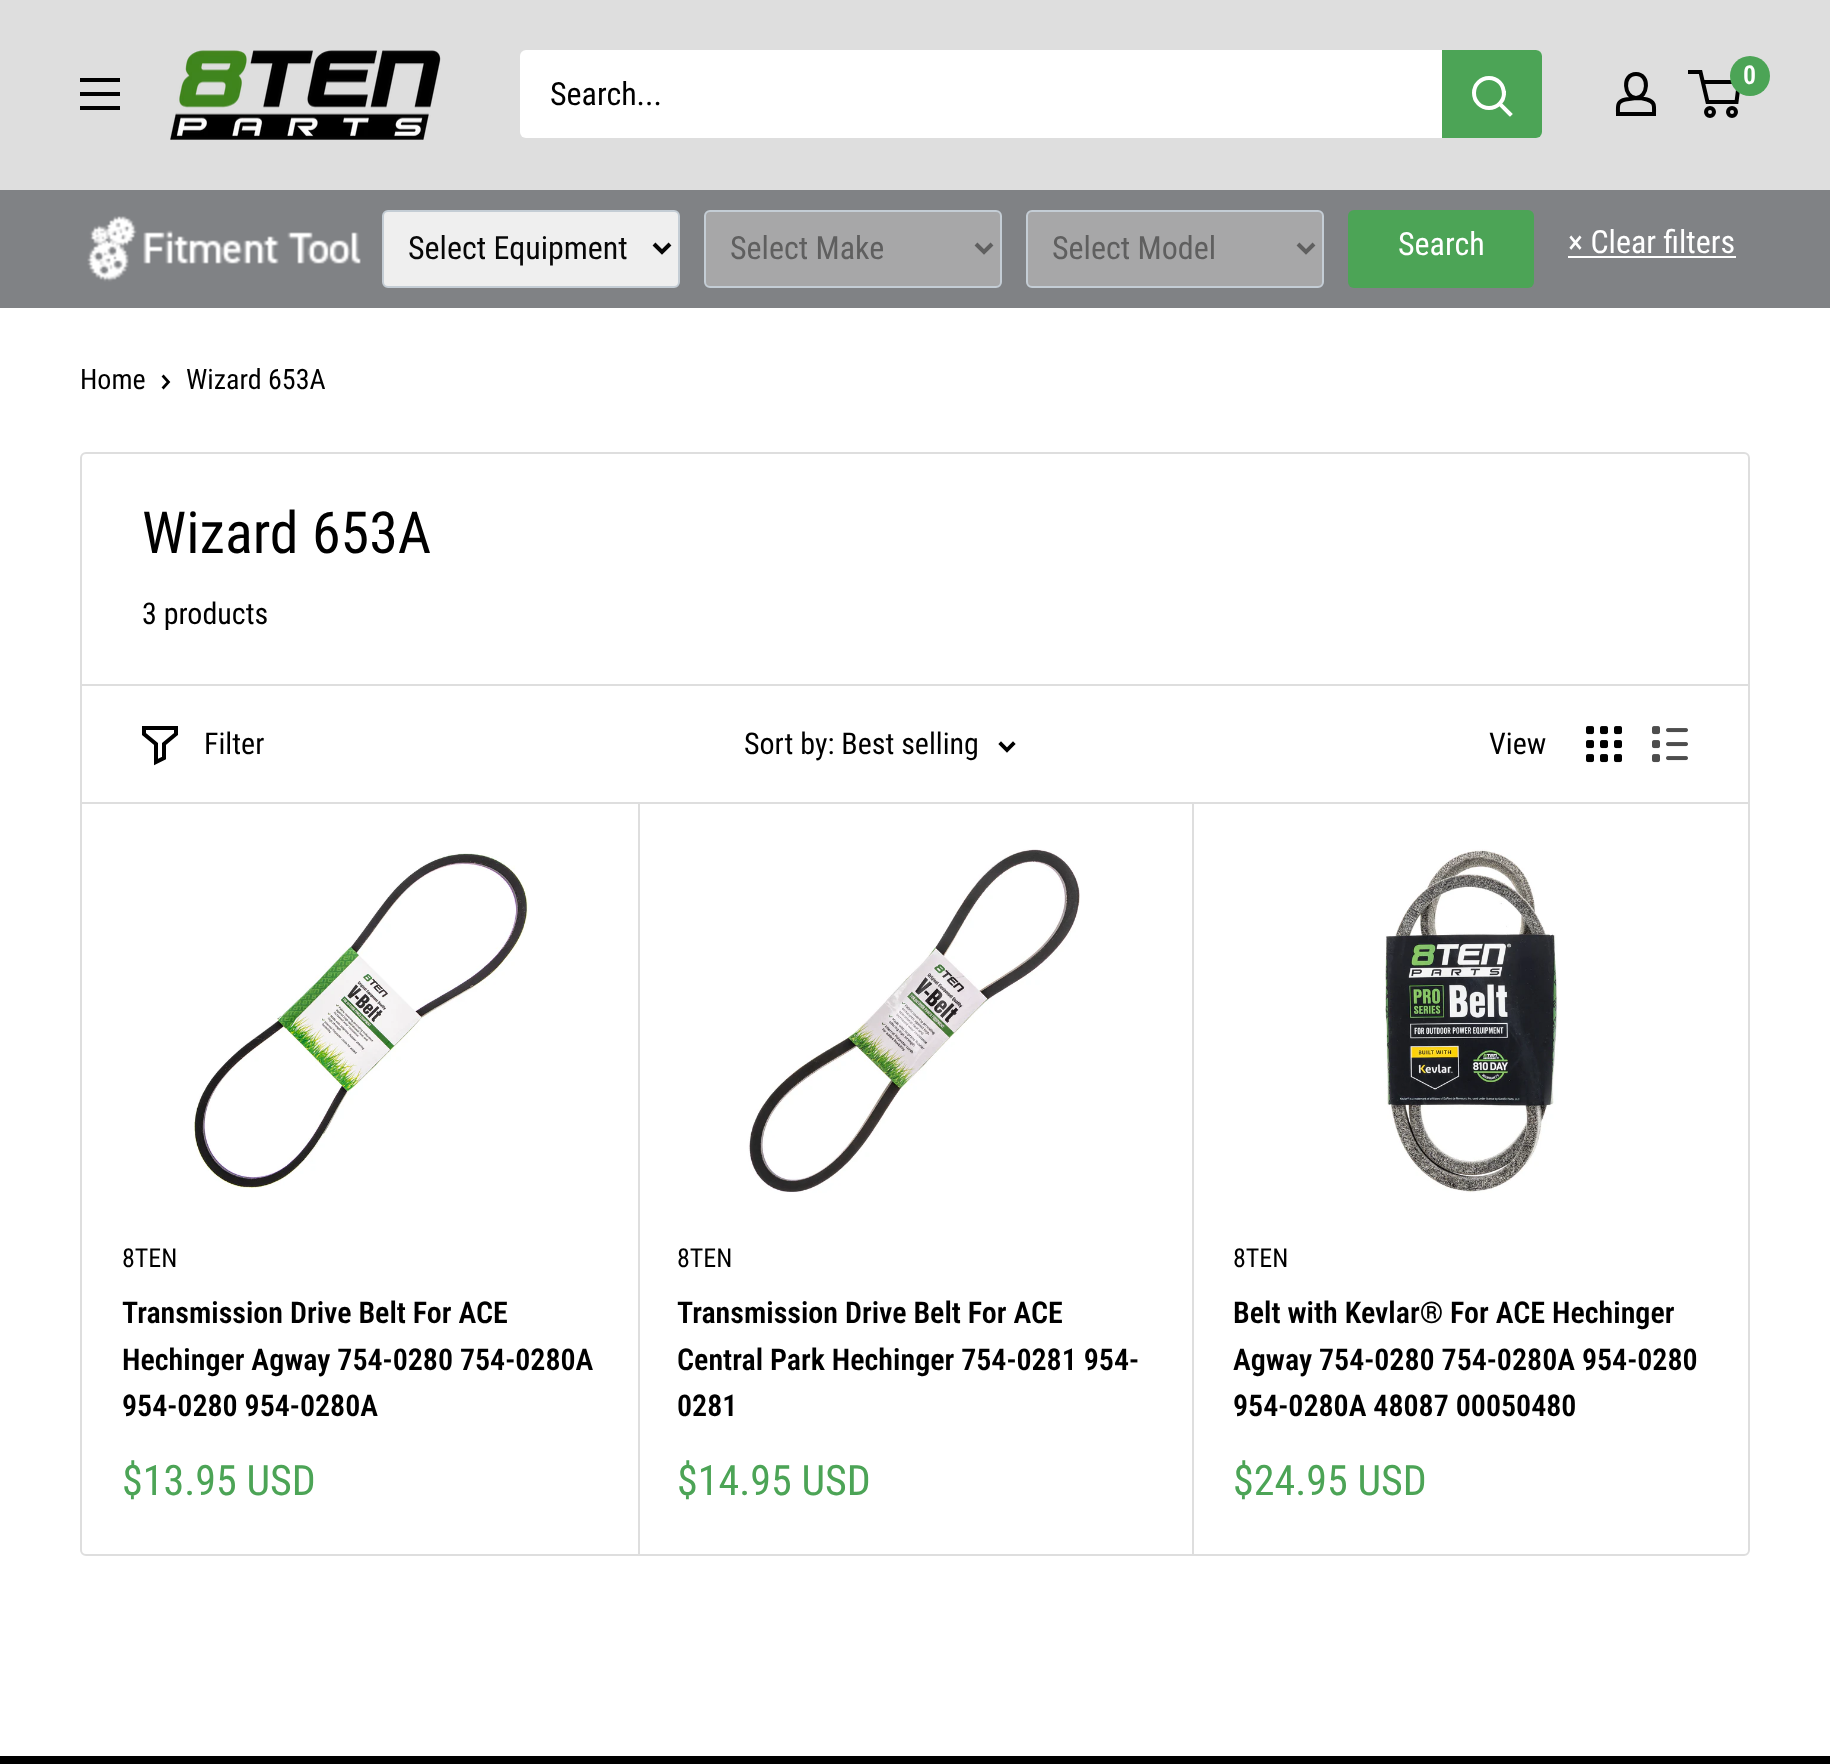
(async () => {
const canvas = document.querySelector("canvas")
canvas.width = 1830
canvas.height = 1764
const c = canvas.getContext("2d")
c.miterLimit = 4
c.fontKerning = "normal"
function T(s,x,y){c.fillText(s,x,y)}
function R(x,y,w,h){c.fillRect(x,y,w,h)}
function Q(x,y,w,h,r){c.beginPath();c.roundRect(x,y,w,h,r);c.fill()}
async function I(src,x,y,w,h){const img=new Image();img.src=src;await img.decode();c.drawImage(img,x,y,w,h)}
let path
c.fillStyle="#fff"
R(0,0,1830,1764)
c.fillStyle="#dedede"
R(0,0,1830,190)
await I("1.png",170,50,271,90)
path = new Path2D("M1636 98c4 0 7.5 .5 11 1.5c8.5 2.5 7 7 7 14.5h-36c0-8-1.5-12.5 7.5-14.5zm0 0c-12 0-14.5-24 0-24c14.5 0 12 24 0 24z")
c.strokeStyle="#000"
c.lineWidth=4
c.stroke(path)
c.beginPath()
c.arc(1710,112,4,0,7)
c.stroke()
c.beginPath()
c.arc(1732,112,4,0,7)
c.stroke()
path = new Path2D("M1702.5 82h36.5l-2.5 20h-29l-7-30h-12.5")
c.stroke(path)
c.fillStyle="#4ca456"
c.beginPath()
c.arc(1750,76,20,0,7)
c.fill()
c.font="600 26px Roboto Condensed"
c.fillStyle="#fff"
T("0",1743,84)
c.fillStyle="#000"
path = new Path2D("M80 106h40v4h-40zm0-28h40v4h-40zm0 14h40v4h-40z")
c.fill(path,"evenodd")
c.fillStyle="#fff"
Q(520,50,1022,88,6)
c.font="32px Roboto Condensed"
c.fillStyle="#000"
T("Search...",550,105)
c.fillStyle="#4ca456"
c.beginPath()
c.roundRect(1442,50,100,88,[0,6,6,0])
c.fill()
path = new Path2D("M1510 114l-10-10")
c.strokeStyle="#fff"
c.lineCap="square"
c.stroke(path)
c.beginPath()
c.arc(1489,93,15,0,7)
c.stroke()
c.fillStyle="#808285"
R(0,190,1830,118)
await I("2.png",87,216,274,66)
c.fillStyle="#efefef"
c.beginPath()
c.roundRect(383,211,296,76,5)
c.fill()
c.strokeStyle="#c4cdd5"
c.lineWidth=2
c.stroke()
path = new Path2D("M654 244l8 8l8-8")
c.strokeStyle="#070707"
c.lineWidth=4
c.lineCap="butt"
c.stroke(path)
c.fillStyle="#070707"
T("Select Equipment",408,259)
c.fillStyle="#a7a7a8"
c.beginPath()
c.roundRect(705,211,296,76,5)
c.fill()
c.strokeStyle="#c4cdd5"
c.lineWidth=2
c.stroke()
path = new Path2D("M976 244l8 8l8-8")
c.strokeStyle="#5f5f5f"
c.lineWidth=4
c.stroke(path)
c.fillStyle="#5f5f5f"
T("Select Make",730,259)
c.fillStyle="#a7a7a8"
c.beginPath()
c.roundRect(1027,211,296,76,5)
c.fill()
c.strokeStyle="#c4cdd5"
c.lineWidth=2
c.stroke()
path = new Path2D("M1298 244l8 8l8-8")
c.strokeStyle="#5f5f5f"
c.lineWidth=4
c.stroke(path)
c.fillStyle="#5f5f5f"
T("Select Model",1052,259)
c.fillStyle="#4ca456"
Q(1348,210,186,78,6)
c.fillStyle="#fff"
T("Search",1398,255)
T("× Clear filters",1568,253)
R(1568,256,168,2)
c.font="28px Roboto Condensed"
c.fillStyle="#000"
T("Home",80,389)
path = new Path2D("M163.5 376.5l5 5.5l-5 5.5")
c.strokeStyle="#000"
c.lineWidth=2.7
c.lineCap="square"
c.stroke(path)
T("Wizard 653A",186,389)
c.beginPath()
c.roundRect(81,453,1668,1102,5)
c.strokeStyle="#dedede"
c.lineWidth=2
c.stroke()
c.font="58px Roboto Condensed"
T("Wizard 653A",142,553)
c.font="30px Roboto Condensed"
T("3 products",142,624)
c.fillStyle="#dedede"
R(82,684,1666,2)
R(638,802,2,752)
R(1192,802,2,752)
R(82,802,1666,2)
path = new Path2D("M176 734l-12 10v14l-8 4v-18l-12-10v-6h32z")
c.strokeStyle="#000"
c.lineWidth=4
c.stroke(path)
c.fillStyle="#000"
T("Filter",204,754)
T("Sort by: Best selling",744,754)
path = new Path2D("M1013 744l-6 6l-6-6")
c.lineWidth=3.8
c.stroke(path)
T("View",1489,754)
await I("3.png",1586,726,36,37)
await I("4.png",1652,726,36,37)
await I("5.png",194,853,334,335)
c.font="26px Roboto Condensed"
T("8TEN",122,1267)
c.font="600 30px Roboto Condensed"
T("Transmission Drive Belt For ACE",122,1323)
T("Hechinger Agway 754-0280 754-0280A",122,1370)
T("954-0280 954-0280A",122,1416)
c.font="42px Roboto Condensed"
c.fillStyle="#4ca456"
T("$13.95 USD",122,1495)
await I("6.png",748,849,332,344)
c.font="26px Roboto Condensed"
c.fillStyle="#000"
T("8TEN",677,1267)
c.font="600 30px Roboto Condensed"
T("Transmission Drive Belt For ACE",677,1323)
T("Central Park Hechinger 754-0281 954-",677,1370)
T("0281",677,1416)
c.font="42px Roboto Condensed"
c.fillStyle="#4ca456"
T("$14.95 USD",677,1495)
await I("7.png",1385,849,173,344)
c.font="26px Roboto Condensed"
c.fillStyle="#000"
T("8TEN",1233,1267)
c.font="600 30px Roboto Condensed"
T("Belt with Kevlar® For ACE Hechinger",1233,1323)
T("Agway 754-0280 754-0280A 954-0280",1233,1370)
T("954-0280A 48087 00050480",1233,1416)
c.font="42px Roboto Condensed"
c.fillStyle="#4ca456"
T("$24.95 USD",1233,1495)
c.fillStyle="#000"
R(0,1756,1830,8)
})()
